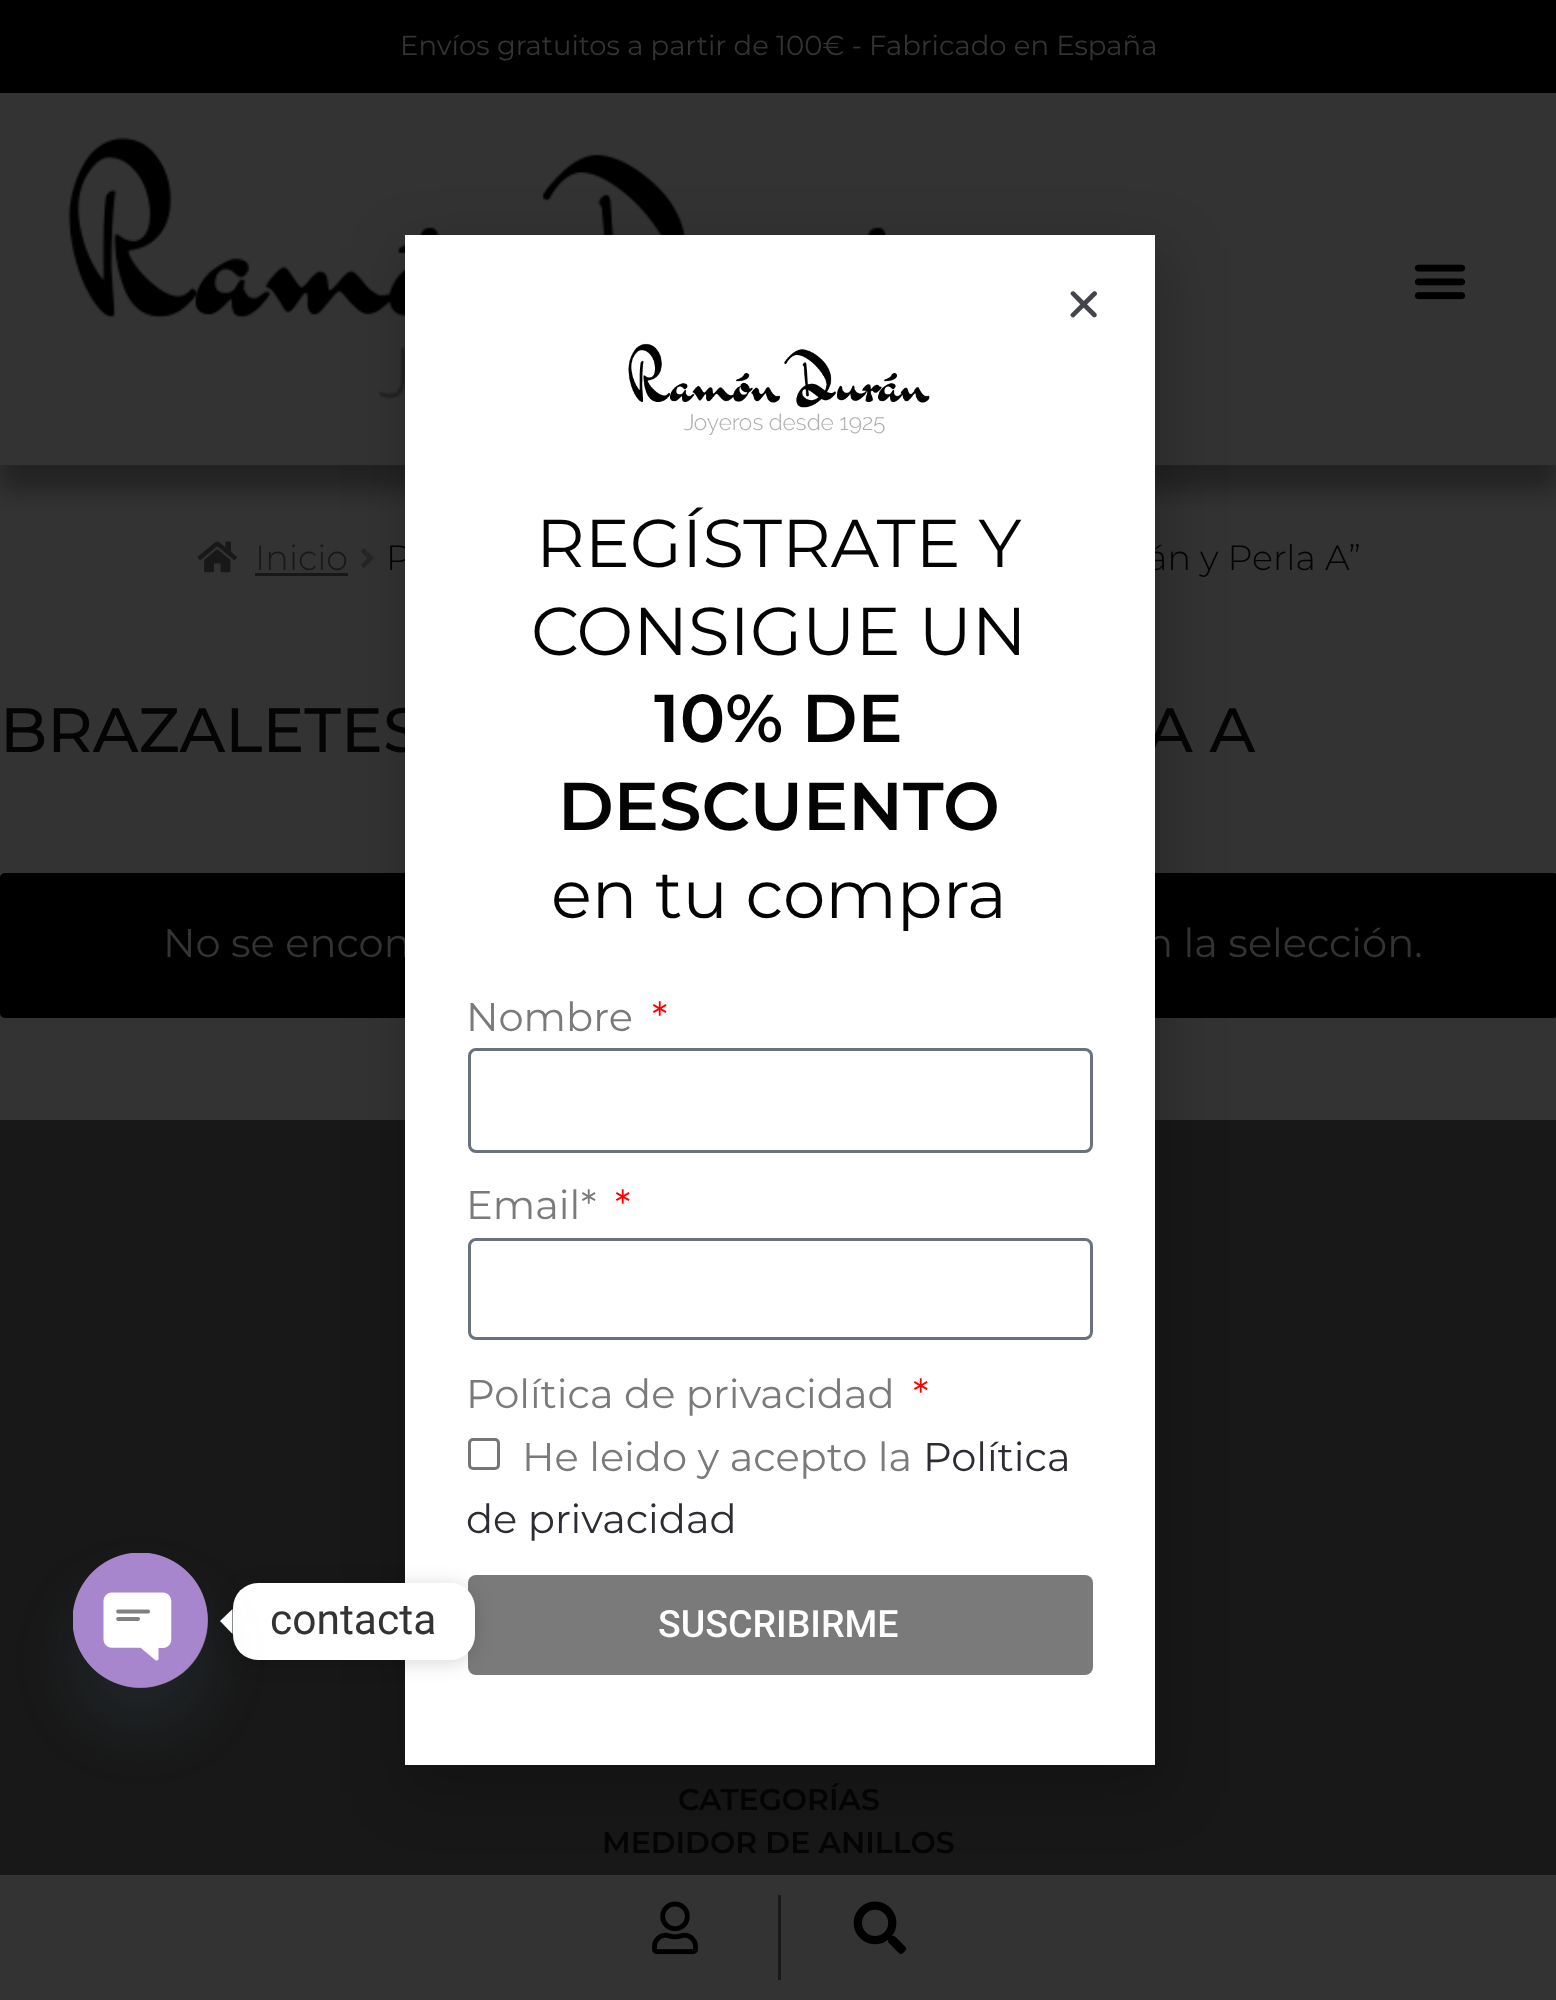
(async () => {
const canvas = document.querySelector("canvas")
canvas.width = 1556
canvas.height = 2000
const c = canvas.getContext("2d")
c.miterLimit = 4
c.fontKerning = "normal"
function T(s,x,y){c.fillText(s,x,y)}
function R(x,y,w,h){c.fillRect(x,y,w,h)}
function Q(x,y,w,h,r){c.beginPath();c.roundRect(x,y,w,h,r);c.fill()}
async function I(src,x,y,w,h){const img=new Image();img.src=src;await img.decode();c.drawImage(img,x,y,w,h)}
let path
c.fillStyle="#333"
R(0,0,1556,2000)
c.fillStyle="#000"
R(0,0,1556,93)
c.font="27.5px Montserrat"
c.fillStyle="#333"
T("Envíos gratuitos a partir de 100€ - Fabricado en España",400,55)
c.save()
c.beginPath()
c.rect(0,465,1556,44)
c.clip()
c.fillStyle="#00000054"
c.filter="blur(12.5px)"
c.beginPath()
c.rect(0,118,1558,372)
c.fill()
c.filter="none"
c.restore()
await I("1.png",68,137,819,263)
await I("2.png",1414,264,52,36)
await I("3.png",197,541,40,32)
c.font="300 35px Montserrat"
c.fillStyle="#181818"
T("Inicio",255,570)
R(255,573,93,3)
await I("4.png",361,548,13,20)
c.fillStyle="#040404"
T("P",386,570)
T("án y Perla A”",1147,570)
c.fillStyle="#000"
Q(0,873,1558,145,5)
c.fillStyle="#181818"
R(0,1120,1556,755)
c.fillStyle="#00000033"
c.filter="blur(29px)"
c.beginPath()
c.rect(403,248,765,1545)
c.fill()
c.filter="none"
c.font="500 62.5px Montserrat"
c.fillStyle="#040404"
T("BRAZALETES",0,752)
T("A A",1147,752)
c.font="40px Montserrat"
c.fillStyle="#333"
T("No se encon",163,957)
T("n la selección.",1146,957)
c.fillStyle="#fff"
R(405,235,750,1530)
await I("5.png",1070,291,28,27)
await I("6.png",628,343,302,92)
c.font="67.5px Montserrat"
c.fillStyle="#040404"
T("REGÍSTRATE Y",536,567)
T("CONSIGUE UN",531,655)
c.font="600 67.5px Montserrat"
T("10% DE",654,742)
T("DESCUENTO",558,830)
c.font="67.5px Montserrat"
T("en tu compra",551,918)
c.font="40px Montserrat"
c.fillStyle="#7a7a7a"
T("Nombre",466,1031)
c.fillStyle="#f00"
T("*",652,1031)
c.beginPath()
c.roundRect(469.5,1049.5,622,102,6.5)
c.strokeStyle="#69727d"
c.lineWidth=3
c.stroke()
c.fillStyle="#7a7a7a"
T("Email*",466,1219)
c.fillStyle="#f00"
T("*",615,1219)
c.beginPath()
c.roundRect(469.5,1239.5,622,99,6.5)
c.stroke()
c.fillStyle="#7a7a7a"
T("Política de privacidad",466,1408)
c.fillStyle="#f00"
T("*",913,1408)
c.beginPath()
c.roundRect(469.5,1439.5,29,29,3.5)
c.strokeStyle="#767676"
c.stroke()
c.fillStyle="#7a7a7a"
T("He leido y acepto la",522,1471)
c.fillStyle="#2c2d33"
T("Política",923,1471)
T("de privacidad",466,1533)
c.fillStyle="#7a7a7a"
Q(468,1575,625,100,8)
c.font="500 37.5px Roboto"
c.fillStyle="#fff"
T("SUSCRIBIRME",658,1637)
c.fillStyle="#00000026"
R(0,875,1,1)
c.save()
path = new Path2D("M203 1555h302v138h-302zm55 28h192c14 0 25 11 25 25v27c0 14-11 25-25 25h-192c-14 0-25-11-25-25v-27c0-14 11-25 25-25z")
c.clip(path,"evenodd")
c.filter="blur(9.5px)"
c.beginPath()
c.roundRect(233,1585,242,78,25)
c.fill()
c.filter="none"
c.restore()
c.fillStyle="#fff"
Q(233,1583,242,77,25)
path = new Path2D("M232.5 1609v25l-12.5-13z")
c.fill(path)
c.fillStyle="#49687e29"
c.filter="blur(30px)"
c.beginPath()
c.roundRect(73,1593,135,135,67.5)
c.fill()
c.filter="none"
c.fillStyle="#7a7a7a"
c.beginPath()
c.arc(140.5,1620.5,67.5,0,7)
c.fill()
await I("7.png",73,1553,135,135)
c.font="42.5px Roboto"
c.fillStyle="#333"
T("contacta",270,1634)
c.font="600 30px Montserrat"
c.fillStyle="#040404"
T("CATEGORÍAS",678,1810)
T("MEDIDOR DE ANILLOS",602,1853)
c.fillStyle="#181818"
R(778,1895,3,85)
await I("8.png",652,1901,46,54)
await I("9.png",853,1901,54,53)
})()
